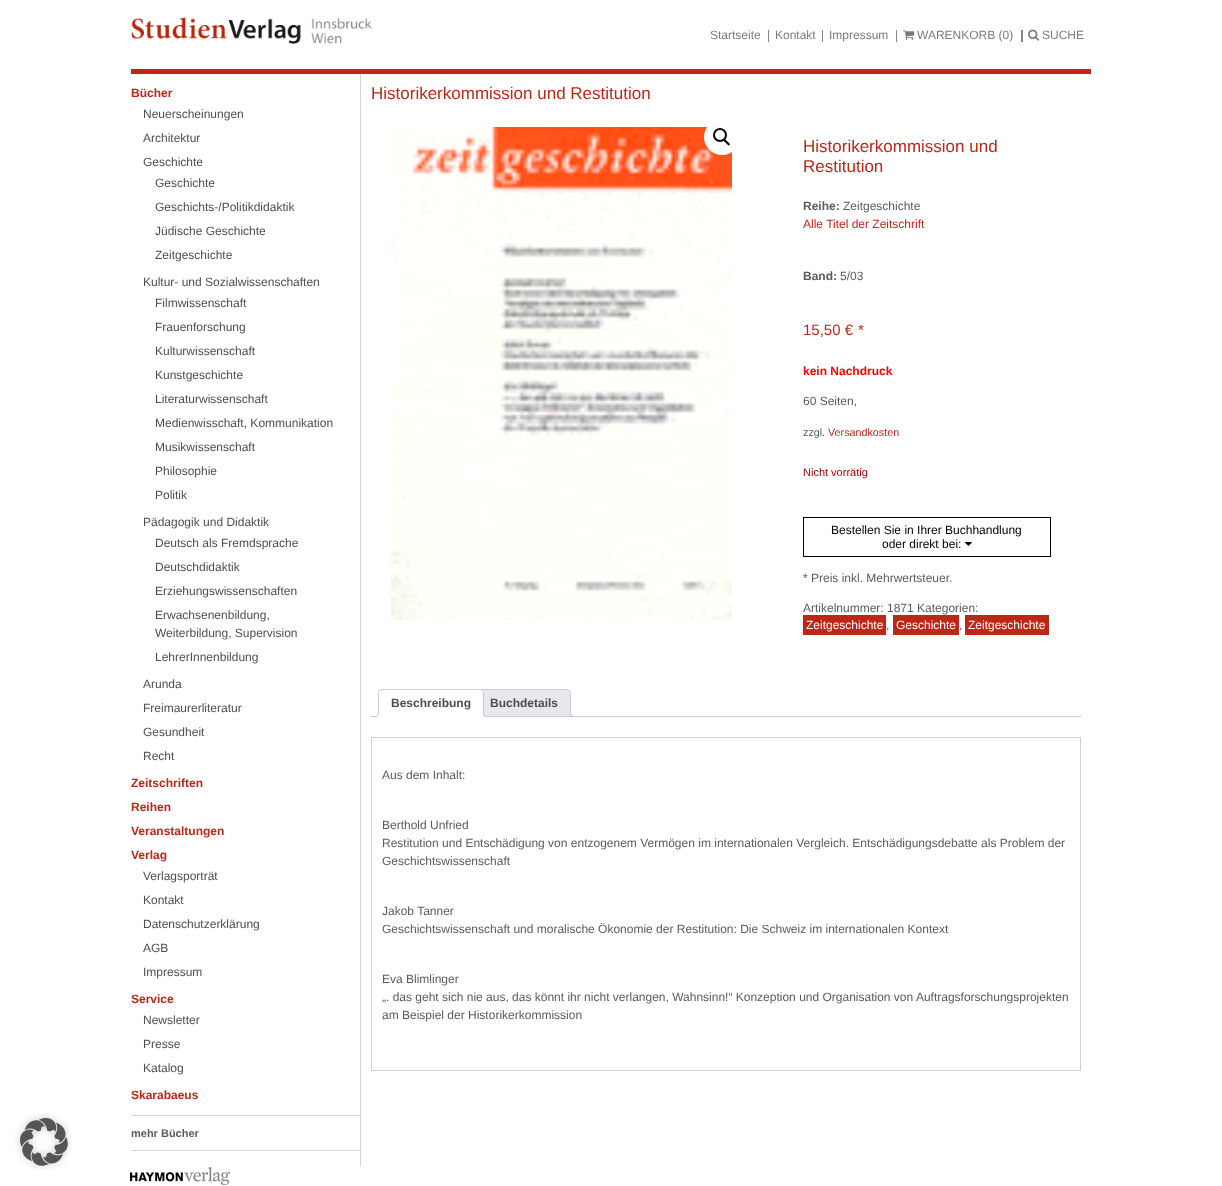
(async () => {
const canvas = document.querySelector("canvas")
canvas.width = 1222
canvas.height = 1186
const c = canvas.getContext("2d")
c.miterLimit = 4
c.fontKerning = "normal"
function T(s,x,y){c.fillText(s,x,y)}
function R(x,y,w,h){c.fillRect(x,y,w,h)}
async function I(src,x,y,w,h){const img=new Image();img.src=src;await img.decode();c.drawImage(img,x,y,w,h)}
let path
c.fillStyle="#fff"
R(0,0,1222,1186)
await I("1.png",15,1113,57,57)
c.fillStyle="#bd2716"
R(131,69,960,5)
await I("2.png",131,17,241,27)
c.font="12px Liberation Sans"
c.fillStyle="#7a7a7a"
T("Startseite",710,39)
c.fillStyle="#858788"
R(768,30,1,12)
c.fillStyle="#7a7a7a"
T("Kontakt",775,39)
c.fillStyle="#858788"
R(822,30,1,12)
c.fillStyle="#7a7a7a"
T("Impressum",829,39)
c.fillStyle="#858788"
R(896,30,1,12)
await I("3.png",903,30,12,10)
c.fillStyle="#7a7a7a"
T("WARENKORB (0)",917,39)
c.fillStyle="#858788"
R(1021,30,2,12)
await I("4.png",1028,29,12,12)
c.fillStyle="#7a7a7a"
T("SUCHE",1042,39)
c.fillStyle="#d4d4d4"
R(360,74,1,1092)
c.font="bold 12px Liberation Sans"
c.fillStyle="#bd2716"
T("Bücher",131,97)
c.font="12px Liberation Sans"
c.fillStyle="#4e4e4e"
T("Neuerscheinungen",143,118)
T("Architektur",143,142)
T("Geschichte",143,166)
T("Geschichte",155,187)
T("Geschichts-/Politikdidaktik",155,211)
T("Jüdische Geschichte",155,235)
T("Zeitgeschichte",155,259)
T("Kultur- und Sozialwissenschaften",143,286)
T("Filmwissenschaft",155,307)
T("Frauenforschung",155,331)
T("Kulturwissenschaft",155,355)
T("Kunstgeschichte",155,379)
T("Literaturwissenschaft",155,403)
T("Medienwisschaft, Kommunikation",155,427)
T("Musikwissenschaft",155,451)
T("Philosophie",155,475)
T("Politik",155,499)
T("Pädagogik und Didaktik",143,526)
T("Deutsch als Fremdsprache",155,547)
T("Deutschdidaktik",155,571)
T("Erziehungswissenschaften",155,595)
T("Erwachsenenbildung,",155,619)
T("Weiterbildung, Supervision",155,637)
T("LehrerInnenbildung",155,661)
T("Arunda",143,688)
T("Freimaurerliteratur",143,712)
T("Gesundheit",143,736)
T("Recht",143,760)
c.font="bold 12px Liberation Sans"
c.fillStyle="#bd2716"
T("Zeitschriften",131,787)
T("Reihen",131,811)
T("Veranstaltungen",131,835)
T("Verlag",131,859)
c.font="12px Liberation Sans"
c.fillStyle="#4e4e4e"
T("Verlagsporträt",143,880)
T("Kontakt",143,904)
T("Datenschutzerklärung",143,928)
T("AGB",143,952)
T("Impressum",143,976)
c.font="bold 12px Liberation Sans"
c.fillStyle="#bd2716"
T("Service",131,1003)
c.font="12px Liberation Sans"
c.fillStyle="#4e4e4e"
T("Newsletter",143,1024)
T("Presse",143,1048)
T("Katalog",143,1072)
c.font="bold 12px Liberation Sans"
c.fillStyle="#bd2716"
T("Skarabaeus",131,1099)
c.fillStyle="#d4d4d4"
R(131,1115,230,1)
R(131,1150,230,1)
c.font="bold 11px Liberation Sans"
c.fillStyle="#5b5b5b"
T("mehr Bücher",131,1137)
await I("5.png",130,1167,100,18)
c.font="17px Liberation Sans"
c.fillStyle="#bd2716"
T("Historikerkommission und Restitution",371,99)
await I("6.png",391,127,341,493)
c.fillStyle="#fff"
c.beginPath()
c.arc(722,137,18,0,7)
c.fill()
c.beginPath()
c.arc(720,135,6,0,7)
c.strokeStyle="#000"
c.lineWidth=2
c.stroke()
c.fillStyle="#000"
path = new Path2D("M724 139.5c1-1 3 1.5 3.5 2c.5 1 3.5 2.5 2 3.5c-1 1.5-3-1.5-3.5-2c-.5-.5-3-2-2-3.5z")
c.fill(path)
c.fillStyle="#bd2716"
T("Historikerkommission und",803,152)
T("Restitution",803,172)
c.font="bold 12px Liberation Sans"
c.fillStyle="#5b5b5b"
T("Reihe:",803,210)
c.font="12px Liberation Sans"
T("Zeitgeschichte",843,210)
c.fillStyle="#bd2716"
T("Alle Titel der Zeitschrift",803,228)
c.font="bold 12px Liberation Sans"
c.fillStyle="#5b5b5b"
T("Band:",803,280)
c.font="12px Liberation Sans"
T("5/03",840,280)
c.font="15px Liberation Sans"
c.fillStyle="#bd2716"
T("15,50 €",803,335)
T("*",858,335)
c.font="bold 12px Liberation Sans"
c.fillStyle="#f00"
T("kein Nachdruck",803,375)
c.font="12px Liberation Sans"
c.fillStyle="#5b5b5b"
T("60 Seiten,",803,405)
c.font="10.75px Liberation Sans"
T("zzgl.",803,436)
c.fillStyle="#bd2716"
T("Versandkosten",828,436)
c.font="11px Liberation Sans"
c.fillStyle="#a00"
T("Nicht vorrätig",803,476)
c.lineWidth=1
c.strokeRect(803.5,517.5,247,39)
c.font="12px Liberation Sans"
c.fillStyle="#000"
T("Bestellen Sie in Ihrer Buchhandlung",831,534)
T("oder direkt bei:",882,548)
await I("7.png",965,542,7,4)
c.fillStyle="#5b5b5b"
T("* Preis inkl. Mehrwertsteuer.",803,582)
T("Artikelnummer: 1871 Kategorien:",803,612)
c.fillStyle="#bd2716"
R(803,615,83,20)
c.fillStyle="#fff"
T("Zeitgeschichte",806,629)
c.fillStyle="#5b5b5b"
T(",",886,629)
c.fillStyle="#bd2716"
R(893,615,66,20)
c.fillStyle="#fff"
T("Geschichte",896,629)
c.fillStyle="#5b5b5b"
T(",",959,629)
c.fillStyle="#bd2716"
R(965,615,84,20)
c.fillStyle="#fff"
T("Zeitgeschichte",968,629)
c.fillStyle="#e9e6ed"
c.beginPath()
c.roundRect(477.5,689.5,93,27,[3.5,3.5,0,0])
c.fill()
c.strokeStyle="#cfc8d8"
c.stroke()
c.save()
c.beginPath()
c.rect(371,689,710,28)
c.clip()
path = new Path2D("M568 714c0 3.5 1.5 5 5 5v-2c-1.5-.5-2.5-1.5-3-3z")
c.fill(path)
c.restore()
c.fillStyle="#cfc8d8"
path = new Path2D("M570 712h5v5c-2.5 0-5-1-5-4zm1 0h4v4c-2 0-4-.5-4-3z")
c.fill(path,"evenodd")
R(371,716,710,1)
c.fillStyle="#fff"
c.beginPath()
c.roundRect(378,689,106,28,[4,4,0,0])
c.fill()
c.fillStyle="#cfc8d8"
path = new Path2D("M382 689l-3 1l1 1l2-1h98l2 1l1-1l-3-1z")
c.fill(path)
path = new Path2D("M484 717v-24c0-1-.5-2-1-3l-1 1c1 0 1 1 1 2v23z")
c.fill(path)
c.fillStyle="#fff"
path = new Path2D("M484 717l-1-1h-104l-1 1z")
c.fill(path)
c.fillStyle="#cfc8d8"
path = new Path2D("M378 717l1-1v-23c0-1 0-2 1-2l-1-1c-.5 1-1 2-1 3z")
c.fill(path)
c.font="bold 12px Liberation Sans"
c.fillStyle="#4e4e4e"
T("Beschreibung",391,707)
c.save()
c.beginPath()
c.rect(371,689,710,28)
c.clip()
c.fillStyle="#fff"
path = new Path2D("M376 717v2c3.5 0 5-1.5 5-5h-2c-.5 1.5-1.5 2.5-3 3z")
c.fill(path)
c.restore()
c.fillStyle="#cfc8d8"
path = new Path2D("M374 712h5c0 3.5-1.5 5-5 5zm0 0h4c0 3-1 4-4 4z")
c.fill(path,"evenodd")
c.save()
c.beginPath()
c.rect(371,689,710,28)
c.clip()
c.fillStyle="#fff"
path = new Path2D("M481 714c0 3.5 1.5 5 5 5v-2c-1.5-.5-2.5-1.5-3-3z")
c.fill(path)
c.restore()
path = new Path2D("M483 712h5v5c-2.5 0-5-1-5-4zm1 0h4v4c-2 0-4-.5-4-3z")
c.fill(path,"evenodd")
c.fillStyle="#4e4e4e"
T("Buchdetails",490,707)
c.strokeStyle="#d3ced2"
c.strokeRect(371.5,737.5,709,333)
c.font="12px Liberation Sans"
c.fillStyle="#5b5b5b"
T("Aus dem Inhalt:",382,779)
T("Berthold Unfried",382,829)
T("Restitution und Entschädigung von entzogenem Vermögen im internationalen Vergleich. Entschädigungsdebatte als Problem der",382,847)
T("Geschichtswissenschaft",382,865)
T("Jakob Tanner",382,915)
T("Geschichtswissenschaft und moralische Ökonomie der Restitution: Die Schweiz im internationalen Kontext",382,933)
T("Eva Blimlinger",382,983)
T("„. das geht sich nie aus, das könnt ihr nicht verlangen, Wahnsinn!“ Konzeption und Organisation von Auftragsforschungsprojekten",382,1001)
T("am Beispiel der Historikerkommission",382,1019)
})()
